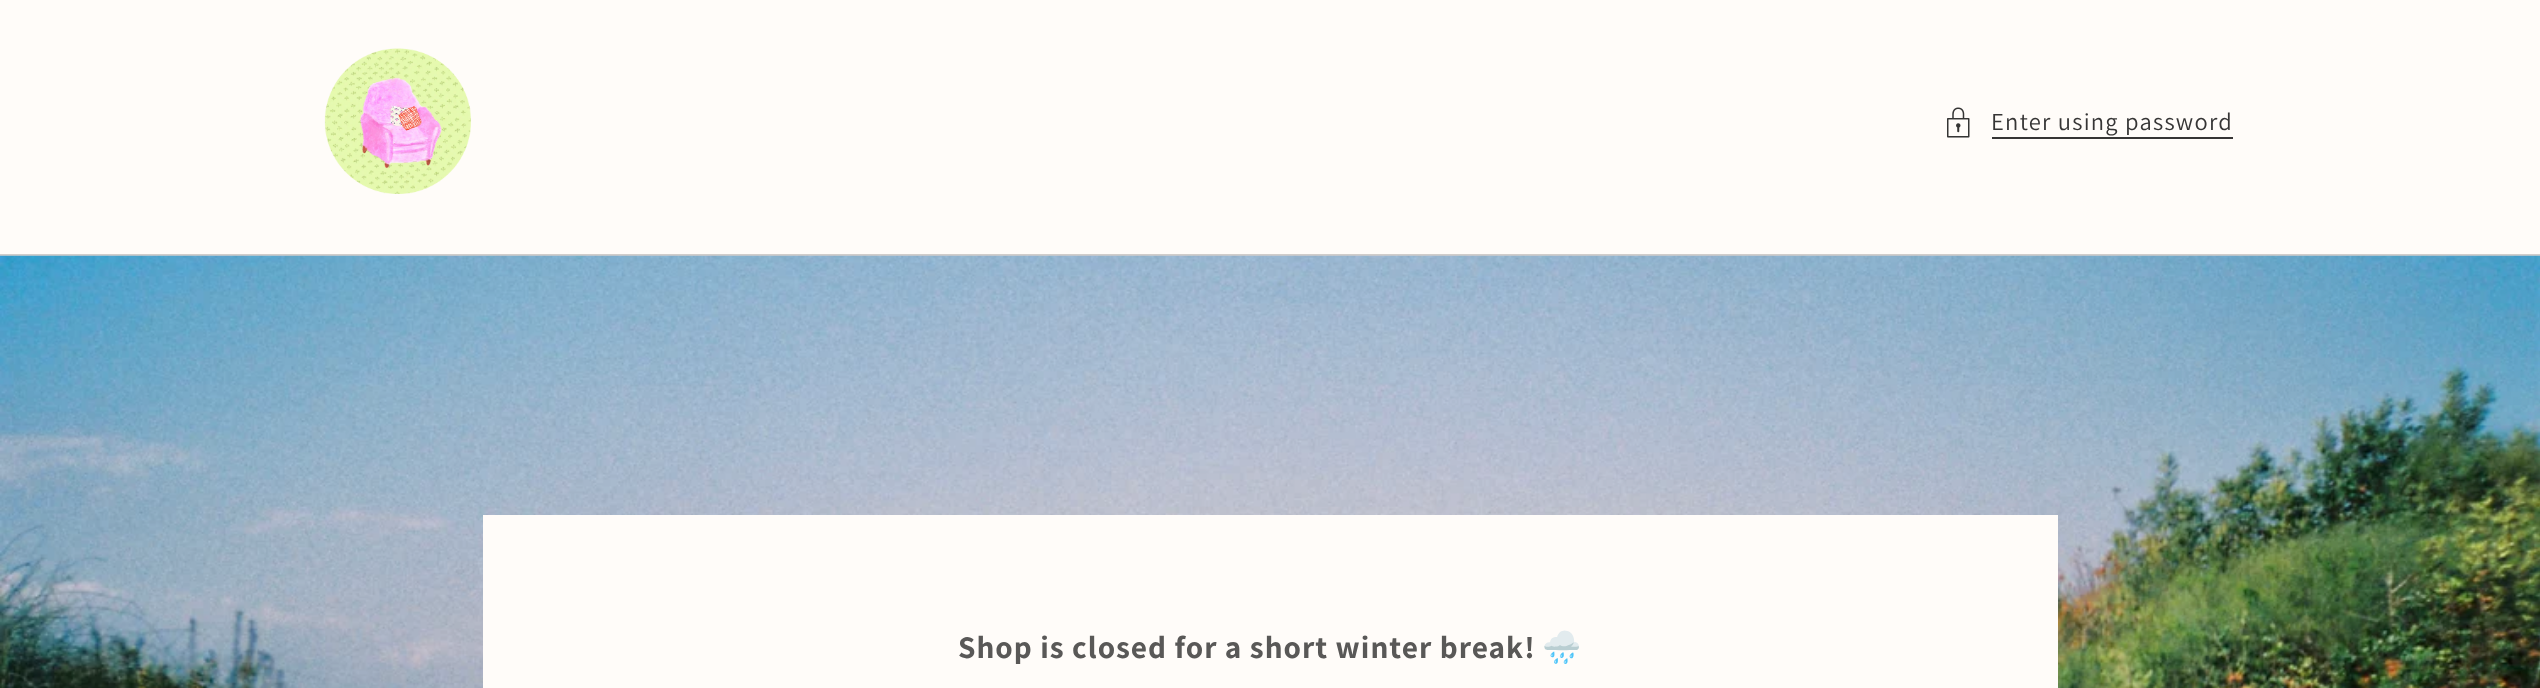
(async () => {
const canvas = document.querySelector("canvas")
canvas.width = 2540
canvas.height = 688
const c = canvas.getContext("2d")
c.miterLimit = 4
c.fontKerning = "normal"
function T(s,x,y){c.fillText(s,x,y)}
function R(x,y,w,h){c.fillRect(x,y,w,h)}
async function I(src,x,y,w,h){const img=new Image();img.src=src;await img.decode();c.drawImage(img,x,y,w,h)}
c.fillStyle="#fffcf9"
R(0,0,2540,688)
await I("1.png",324,48,147,146)
await I("2.png",1947,107,23,31)
c.letterSpacing="1.25px"
c.font="24.5px Assistant"
c.fillStyle="#363535"
T("Enter using password",1991,130)
R(1992,137,241,2)
c.fillStyle="#d0cdcb"
R(0,254,2540,2)
await I("3.png",0,255,2540,433)
c.fillStyle="#fffcf9"
R(483,515,1575,173)
c.letterSpacing="1.05px"
c.font="bold 31.5px Assistant"
c.fillStyle="#595857"
T("Shop is closed for a short winter break!",958,658)
c.font="bold 31.5px Noto Color Emoji"
T("🌧️",1542,658)
})()
